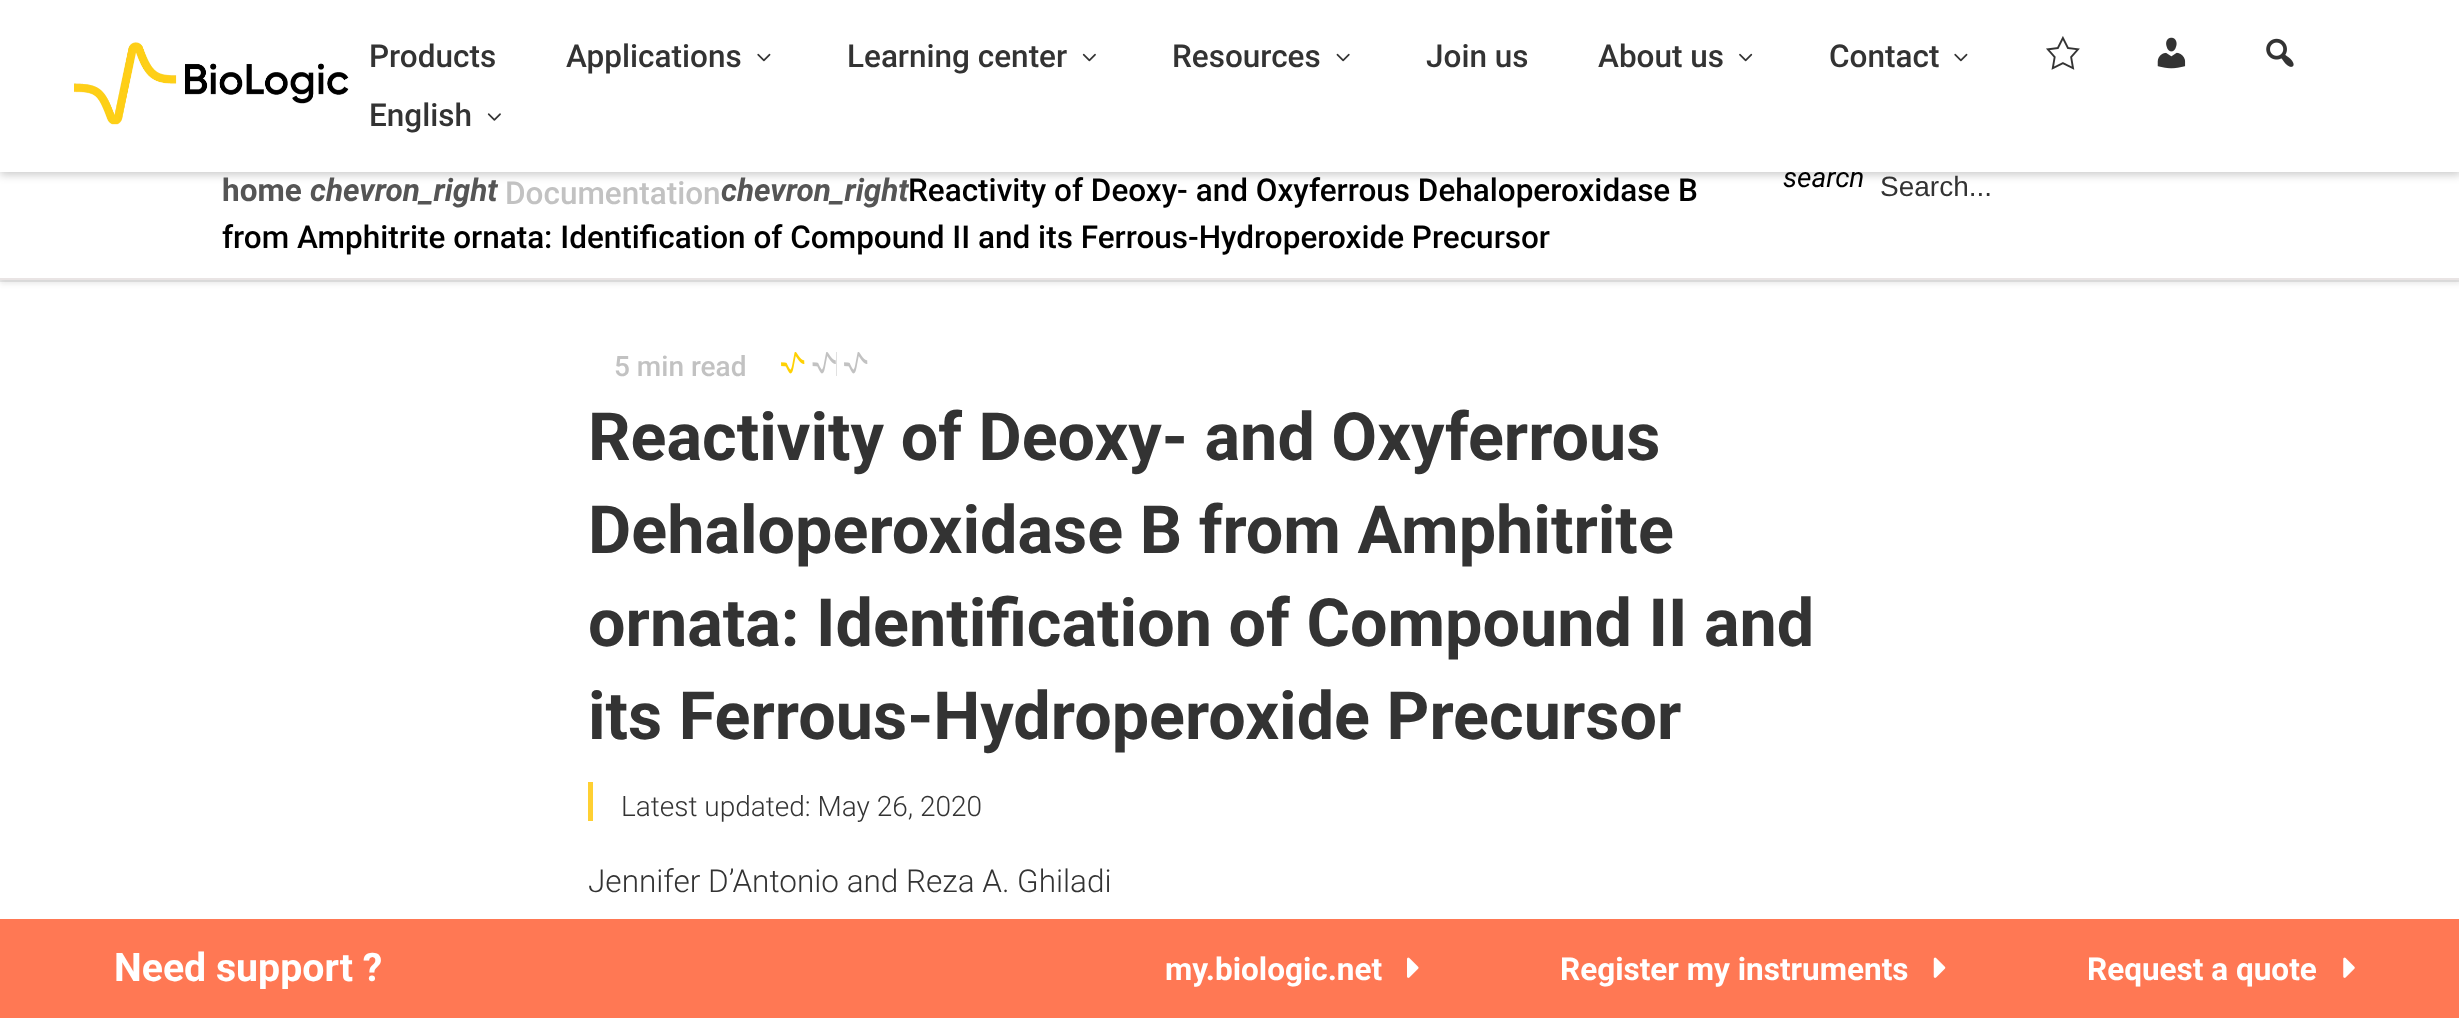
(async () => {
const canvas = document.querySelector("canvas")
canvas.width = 2459
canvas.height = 1018
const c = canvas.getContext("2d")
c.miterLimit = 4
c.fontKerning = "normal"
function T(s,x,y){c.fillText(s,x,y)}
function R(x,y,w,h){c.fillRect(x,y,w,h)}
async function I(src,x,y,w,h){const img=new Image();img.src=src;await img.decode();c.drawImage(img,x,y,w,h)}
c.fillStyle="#fff"
R(0,0,2459,1018)
c.strokeStyle="#ebebeb"
c.lineWidth=2
c.strokeRect(-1,145,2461,136)
c.fillStyle="#3333331a"
c.filter="blur(2.5px)"
c.beginPath()
c.rect(0,149,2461,135)
c.fill()
c.filter="none"
c.fillStyle="#fff"
R(0,172,2459,106)
c.fillStyle="#00000033"
c.filter="blur(4.5px)"
c.beginPath()
c.rect(0,4,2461,171)
c.fill()
c.filter="none"
c.font="italic 28px Roboto"
c.fillStyle="#000"
T("search",1783,187)
c.fillStyle="#fff"
R(0,0,2459,172)
await I("1.png",74,42,275,83)
c.font="500 31.5px Roboto"
c.fillStyle="#333"
T("Products",369,67)
T("Applications",566,67)
await I("2.png",757,53,14,9)
T("Learning center",847,67)
await I("3.png",1082,53,14,9)
T("Resources",1172,67)
await I("4.png",1336,53,14,9)
T("Join us",1426,67)
T("About us",1598,67)
await I("5.png",1739,53,14,9)
T("Contact",1829,67)
await I("2.png",1954,53,14,9)
await I("6.png",2046,36,34,34)
await I("7.png",2157,37,29,32)
await I("8.png",2266,38,28,29)
T("English",369,126)
await I("9.png",487,113,14,8)
c.fillStyle="#e9e4e4"
R(0,278,2459,2)
c.font="bold 31.5px Roboto"
c.fillStyle="#555"
T("home",222,201)
c.font="italic bold 31.5px Roboto"
T("chevron_right",310,201)
c.font="500 31.5px Roboto"
c.fillStyle="#c2c2c2"
T("Documentation",505,204)
c.font="italic bold 31.5px Roboto"
c.fillStyle="#555"
T("chevron_right",721,201)
c.font="500 31.5px Roboto"
c.fillStyle="#000"
T("Reactivity of Deoxy- and Oxyferrous Dehaloperoxidase B",908,201)
T("from Amphitrite ornata: Identification of Compound II and its Ferrous-Hydroperoxide Precursor",222,248)
c.font="28px Liberation Sans"
c.fillStyle="#333"
T("Search...",1880,196)
c.fillStyle="#ffd103"
R(781,352,24,22)
await I("10.png",781,352,24,24)
c.fillStyle="#c2c2c2"
R(812,352,25,24)
await I("11.png",812,352,25,24)
R(844,352,24,22)
c.font="500 28px Roboto"
T("5 min read",614,376)
await I("12.png",844,352,24,24)
c.font="bold 66.5px Roboto"
c.fillStyle="#333"
T("Reactivity of Deoxy- and Oxyferrous",588,460)
T("Dehaloperoxidase B from Amphitrite",588,553)
T("ornata: Identification of Compound II and",588,646)
T("its Ferrous-Hydroperoxide Precursor",588,739)
c.fillStyle="#ffd032"
R(588,782,5,39)
c.font="300 28px Roboto"
c.fillStyle="#333"
T("Latest updated: May 26, 2020",621,816)
c.font="300 31.5px Roboto"
T("Jennifer D’Antonio and Reza A. Ghiladi",588,892)
c.fillStyle="#ff7854"
R(0,919,2459,99)
c.font="bold 39.25px Roboto"
c.fillStyle="#fff"
T("Need support ?",114,981)
c.font="bold 31.5px Roboto"
T("my.biologic.net",1165,980)
await I("13.png",1407,957,12,21)
T("Register my instruments",1560,980)
await I("14.png",1933,957,13,21)
T("Request a quote",2087,980)
await I("15.png",2343,957,12,21)
})()
